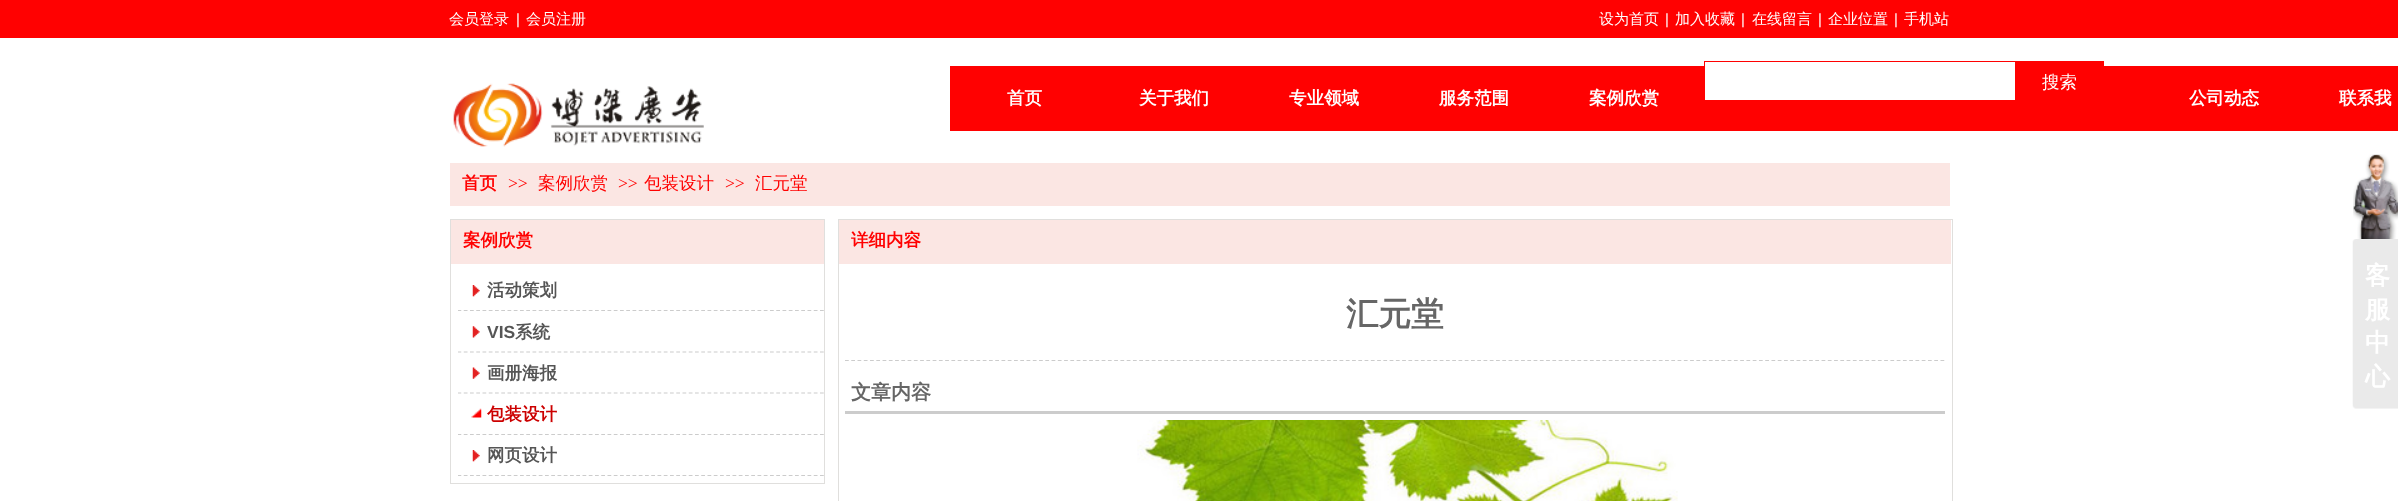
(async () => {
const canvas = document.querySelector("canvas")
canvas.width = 2398
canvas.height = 501
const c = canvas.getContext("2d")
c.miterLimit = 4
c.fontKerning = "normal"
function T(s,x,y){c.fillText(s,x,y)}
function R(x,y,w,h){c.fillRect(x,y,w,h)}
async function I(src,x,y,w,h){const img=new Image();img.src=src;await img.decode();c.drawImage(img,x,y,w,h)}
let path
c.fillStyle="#fff"
R(0,0,2398,501)
c.fillStyle="#ff0101"
R(0,0,2398,38)
c.font="500 15px WenQuanYi Zen Hei"
c.fillStyle="#fff"
T("会员登录",449,24)
c.font="15px Liberation Sans"
T("|",516,24)
c.font="500 15px WenQuanYi Zen Hei"
T("会员注册",526,24)
T("设为首页",1599,24)
c.font="15px Liberation Sans"
T("|",1665,24)
c.font="500 15px WenQuanYi Zen Hei"
T("加入收藏",1675,24)
c.font="15px Liberation Sans"
T("|",1741,24)
c.font="500 15px WenQuanYi Zen Hei"
T("在线留言",1752,24)
c.font="15px Liberation Sans"
T("|",1818,24)
c.font="500 15px WenQuanYi Zen Hei"
T("企业位置",1828,24)
c.font="15px Liberation Sans"
T("|",1894,24)
c.font="500 15px WenQuanYi Zen Hei"
T("手机站",1904,24)
await I("1.png",453,83,251,64)
c.fillStyle="#ff0101"
R(950,66,1448,65)
c.fillStyle="#fff"
R(1705,66,310,34)
c.strokeStyle="#ff0101"
c.strokeRect(1704.5,61.5,311,39)
c.fillStyle="#ff0101"
R(2016,61,88,5)
c.font="500 17.5px WenQuanYi Zen Hei"
c.fillStyle="#fff"
T("搜索",2042,88)
c.font="bold 17.5px WenQuanYi Zen Hei"
T("首页",1007,104)
T("关于我们",1139,104)
T("专业领域",1289,104)
T("服务范围",1439,104)
T("案例欣赏",1589,104)
T("公司动态",2189,104)
T("联系我",2339,104)
c.fillStyle="#fbe6e3"
R(450,163,1500,43)
c.fillStyle="#ff0101"
T("首页",462,189)
c.font="17.5px Liberation Serif"
T(">>",508,189)
c.font="500 17.5px WenQuanYi Zen Hei"
T("案例欣赏",538,189)
c.font="17.5px Liberation Serif"
T(">>",618,189)
c.font="500 17.5px WenQuanYi Zen Hei"
T("包装设计",644,189)
c.font="17.5px Liberation Serif"
T(">>",725,189)
c.font="500 17.5px WenQuanYi Zen Hei"
T("汇元堂",755,189)
c.strokeStyle="#e0dfdd"
c.strokeRect(450.5,219.5,374,264)
c.fillStyle="#fbe6e3"
R(451,220,373,44)
c.font="bold 17.5px WenQuanYi Zen Hei"
c.fillStyle="#ff0101"
T("案例欣赏",463,246)
c.save()
c.beginPath()
c.rect(458,270,366,41)
c.clip()
path = new Path2D("M457.5 310.5h372.5")
c.strokeStyle="#ccc"
c.lineWidth=1.2
c.setLineDash([3.75,2.5])
c.stroke(path)
c.restore()
await I("2.png",472,285,8,12)
c.fillStyle="#555"
T("活动策划",487,296)
c.save()
c.beginPath()
c.rect(458,311,366,42)
c.clip()
path = new Path2D("M457.5 352h372.5")
c.strokeStyle="#ccc"
c.lineWidth=1.2
c.setLineDash([3.75,2.5])
c.stroke(path)
c.restore()
await I("3.png",472,326,8,12)
c.font="bold 17.5px Liberation Sans"
T("VIS",487,338)
c.font="bold 17.5px WenQuanYi Zen Hei"
T("系统",515,338)
c.save()
c.beginPath()
c.rect(458,353,366,41)
c.clip()
path = new Path2D("M457.5 393h372.5")
c.strokeStyle="#ccc"
c.lineWidth=1.2
c.setLineDash([3.75,2.5])
c.stroke(path)
c.restore()
await I("4.png",472,367,8,12)
T("画册海报",487,379)
c.save()
c.beginPath()
c.rect(458,394,366,41)
c.clip()
path = new Path2D("M457.5 434.5h372.5")
c.strokeStyle="#ccc"
c.lineWidth=1.2
c.setLineDash([3.75,2.5])
c.stroke(path)
c.restore()
await I("5.png",471,408,11,10)
c.fillStyle="#c00"
T("包装设计",487,420)
c.save()
c.beginPath()
c.rect(458,435,366,41)
c.clip()
path = new Path2D("M457.5 475.5h372.5")
c.strokeStyle="#ccc"
c.lineWidth=1.2
c.setLineDash([3.75,2.5])
c.stroke(path)
c.restore()
await I("2.png",472,450,8,12)
c.fillStyle="#555"
T("网页设计",487,461)
c.strokeRect(838.5,219.5,1114,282)
c.fillStyle="#fbe6e3"
R(839,220,1112,44)
c.fillStyle="#ff0101"
T("详细内容",851,246)
path = new Path2D("M845 360.5h1100")
c.strokeStyle="#ccc"
c.lineWidth=1.2
c.setLineDash([3.75,2.51])
c.stroke(path)
c.font="bold 32.5px WenQuanYi Zen Hei"
c.fillStyle="#666"
T("汇元堂",1346,325)
c.fillStyle="#ccc"
R(845,411,1100,3)
c.font="bold 20px WenQuanYi Zen Hei"
c.fillStyle="#666"
T("文章内容",851,399)
await I("6.png",1137,420,541,81)
await I("7.png",2353,154,45,85)
await I("8.png",2352,239,46,170)
c.font="bold 25px WenQuanYi Zen Hei"
c.fillStyle="#fff"
T("客",2365,284)
T("服",2365,318)
T("中",2365,351)
T("心",2365,385)
})()
